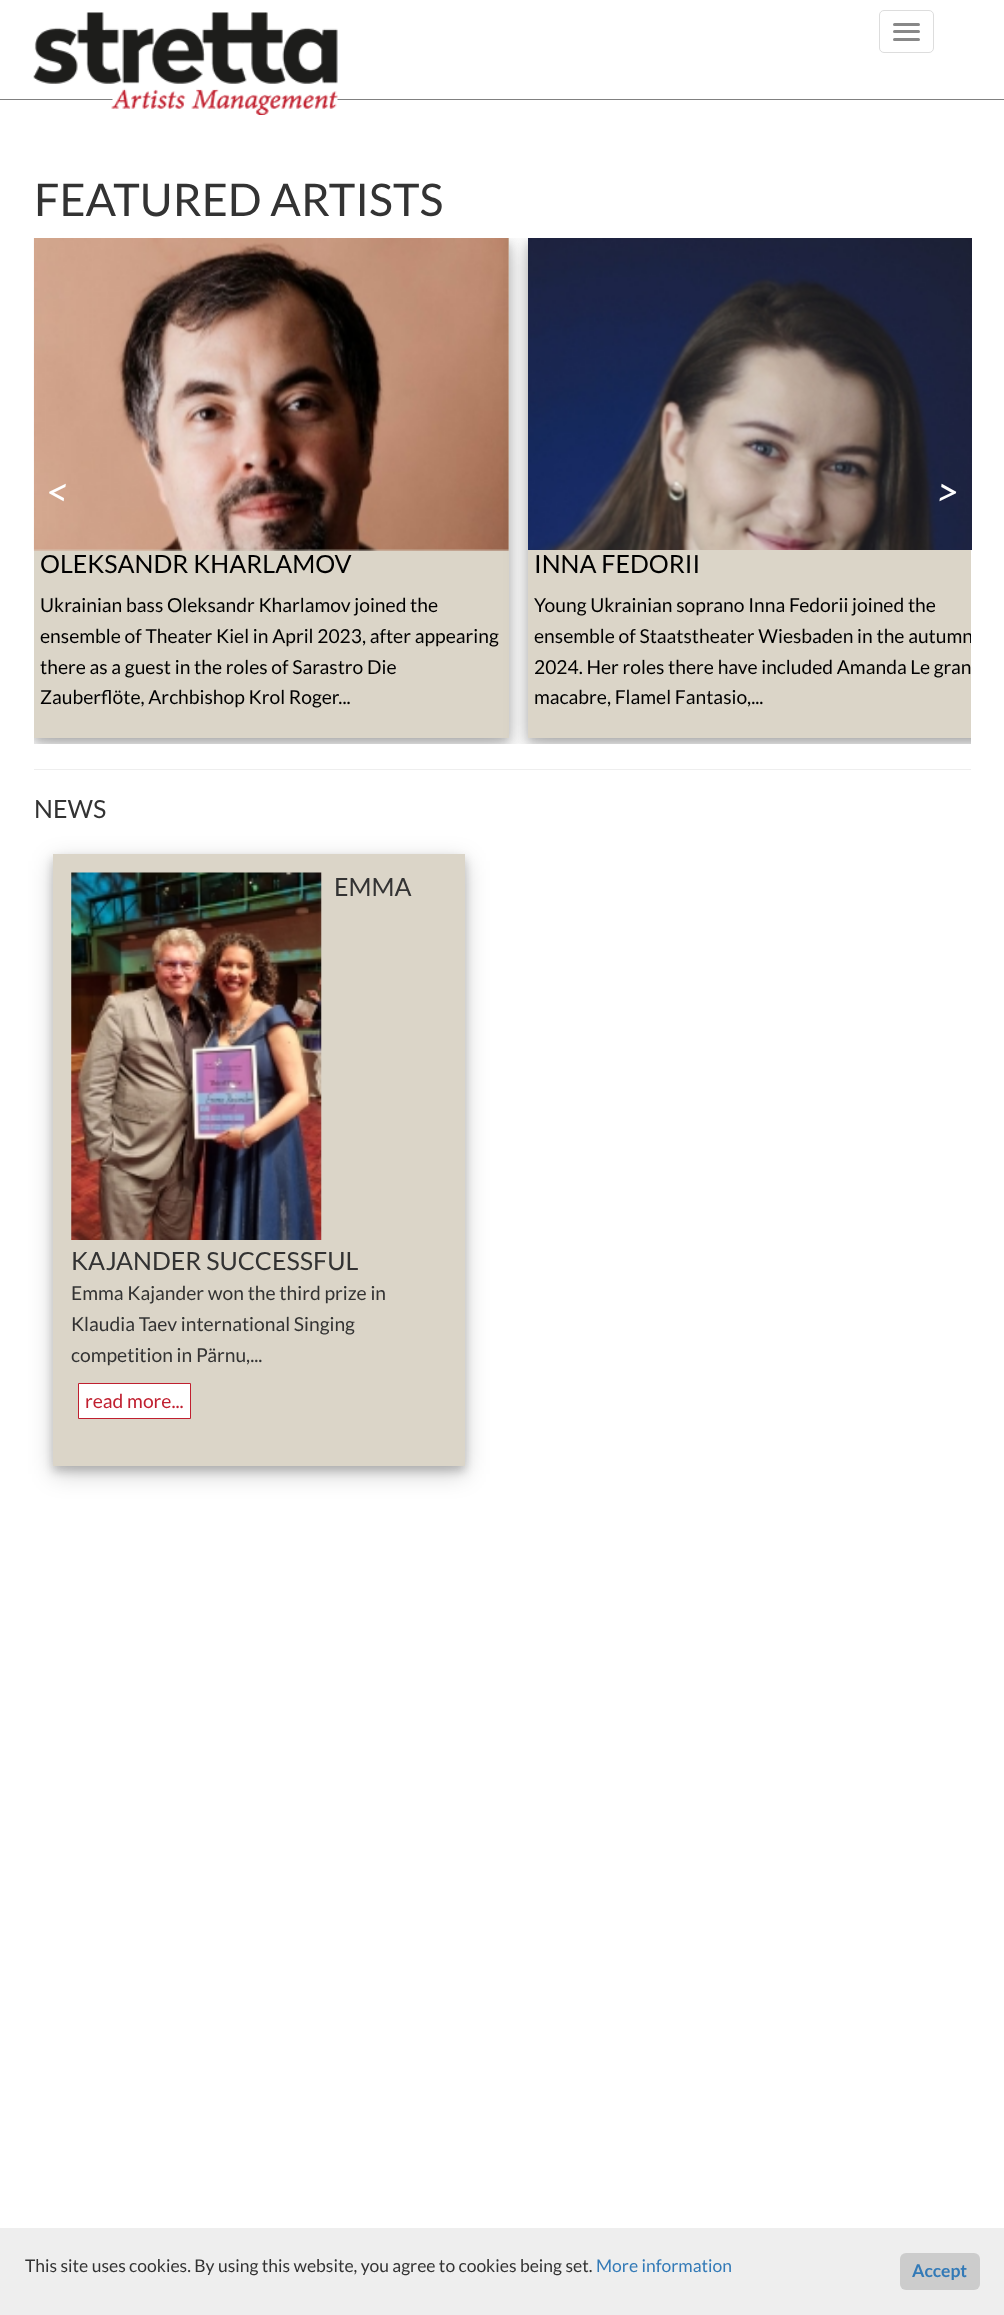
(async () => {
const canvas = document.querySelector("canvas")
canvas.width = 1004
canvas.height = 2315
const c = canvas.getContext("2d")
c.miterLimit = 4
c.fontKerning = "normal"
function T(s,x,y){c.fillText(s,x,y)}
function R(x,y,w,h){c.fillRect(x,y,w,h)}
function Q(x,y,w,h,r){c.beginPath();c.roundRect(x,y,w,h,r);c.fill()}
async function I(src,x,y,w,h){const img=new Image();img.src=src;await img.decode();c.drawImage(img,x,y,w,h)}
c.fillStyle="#fff"
R(0,0,1004,2315)
c.fillStyle="#808080"
R(0,99,1004,1)
await I("1.png",33,12,305,103)
c.beginPath()
c.roundRect(879.5,10.5,54,42,4.5)
c.strokeStyle="#ddd"
c.stroke()
c.fillStyle="#888"
Q(893,23,27,3,1.5)
Q(893,30,27,3,1.5)
Q(893,38,27,3,1.5)
c.font="45px Lato"
c.fillStyle="#333"
T("FEATURED ARTISTS",34,216)
c.fillStyle="#eee"
R(34,769,937,1)
c.save()
c.beginPath()
c.rect(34,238,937,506)
c.clip()
c.fillStyle="#00000030"
c.filter="blur(12.5px)"
c.beginPath()
c.rect(34,245,475,500)
c.fill()
c.filter="none"
c.fillStyle="#00000033"
c.filter="blur(5px)"
c.beginPath()
c.rect(34,243,475,500)
c.fill()
c.filter="none"
c.restore()
c.fillStyle="#dbd5c8"
R(34,238,475,500)
await I("2.png",33,238,476,313)
c.font="italic 40px Lato"
c.fillStyle="#fff"
T("<",46,506)
c.save()
c.beginPath()
c.rect(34,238,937,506)
c.clip()
c.fillStyle="#00000030"
c.filter="blur(12.5px)"
c.beginPath()
c.rect(528,245,475,500)
c.fill()
c.filter="none"
c.fillStyle="#00000033"
c.filter="blur(5px)"
c.beginPath()
c.rect(528,243,475,500)
c.fill()
c.filter="none"
c.restore()
await I("3.png",528,238,444,312)
T(">",937,506)
c.font="25px Lato"
c.fillStyle="#000"
T("OLEKSANDR KHARLAMOV",40,573)
c.font="19.25px Lato"
T("Ukrainian bass Oleksandr Kharlamov joined the",40,612)
T("ensemble of Theater Kiel in April 2023, after appearing",40,643)
T("there as a guest in the roles of Sarastro Die",40,674)
T("Zauberflöte, Archbishop Krol Roger...",40,704)
c.fillStyle="#dbd5c8"
R(528,550,443,188)
c.font="25px Lato"
c.fillStyle="#000"
T("INNA FEDORII",534,573)
c.font="19.25px Lato"
T("Young Ukrainian soprano Inna Fedorii joined the",534,612)
c.save()
c.beginPath()
c.rect(34,238,937,506)
c.clip()
T("ensemble of Staatstheater Wiesbaden in the autumn",534,643)
c.restore()
T("2024. Her roles there have included Amanda Le gran",534,674)
T("macabre, Flamel Fantasio,...",534,704)
c.font="25px Lato"
c.fillStyle="#333"
T("NEWS",34,818)
c.fillStyle="#00000030"
c.filter="blur(12.5px)"
c.beginPath()
c.rect(53,861,412,613)
c.fill()
c.filter="none"
c.fillStyle="#00000033"
c.filter="blur(5px)"
c.beginPath()
c.rect(53,859,412,612)
c.fill()
c.filter="none"
c.fillStyle="#dbd5c8"
R(53,854,412,612)
await I("4.png",71,872,251,368)
c.fillStyle="#333"
T("EMMA",334,896)
T("KAJANDER SUCCESSFUL",71,1270)
c.font="19.25px Lato"
T("Emma Kajander won the third prize in",71,1300)
T("Klaudia Taev international Singing",71,1331)
T("competition in Pärnu,...",71,1362)
c.fillStyle="#fff"
c.beginPath()
c.rect(78.5,1383.5,112,35)
c.fill()
c.strokeStyle="#c01f2f"
c.stroke()
c.fillStyle="#c01f2f"
T("read more...",85,1408)
c.fillStyle="#eee"
R(0,2228,1004,87)
c.font="17.5px Lato"
c.fillStyle="#333"
T("This site uses cookies. By using this website, you agree to cookies being set.",25,2272)
c.fillStyle="#337ab7"
T("More information",596,2272)
c.fillStyle="#ccc"
Q(900,2253,80,37,6)
c.font="bold 17.5px Lato"
c.fillStyle="#337ab7"
T("Accept",912,2277)
})()
